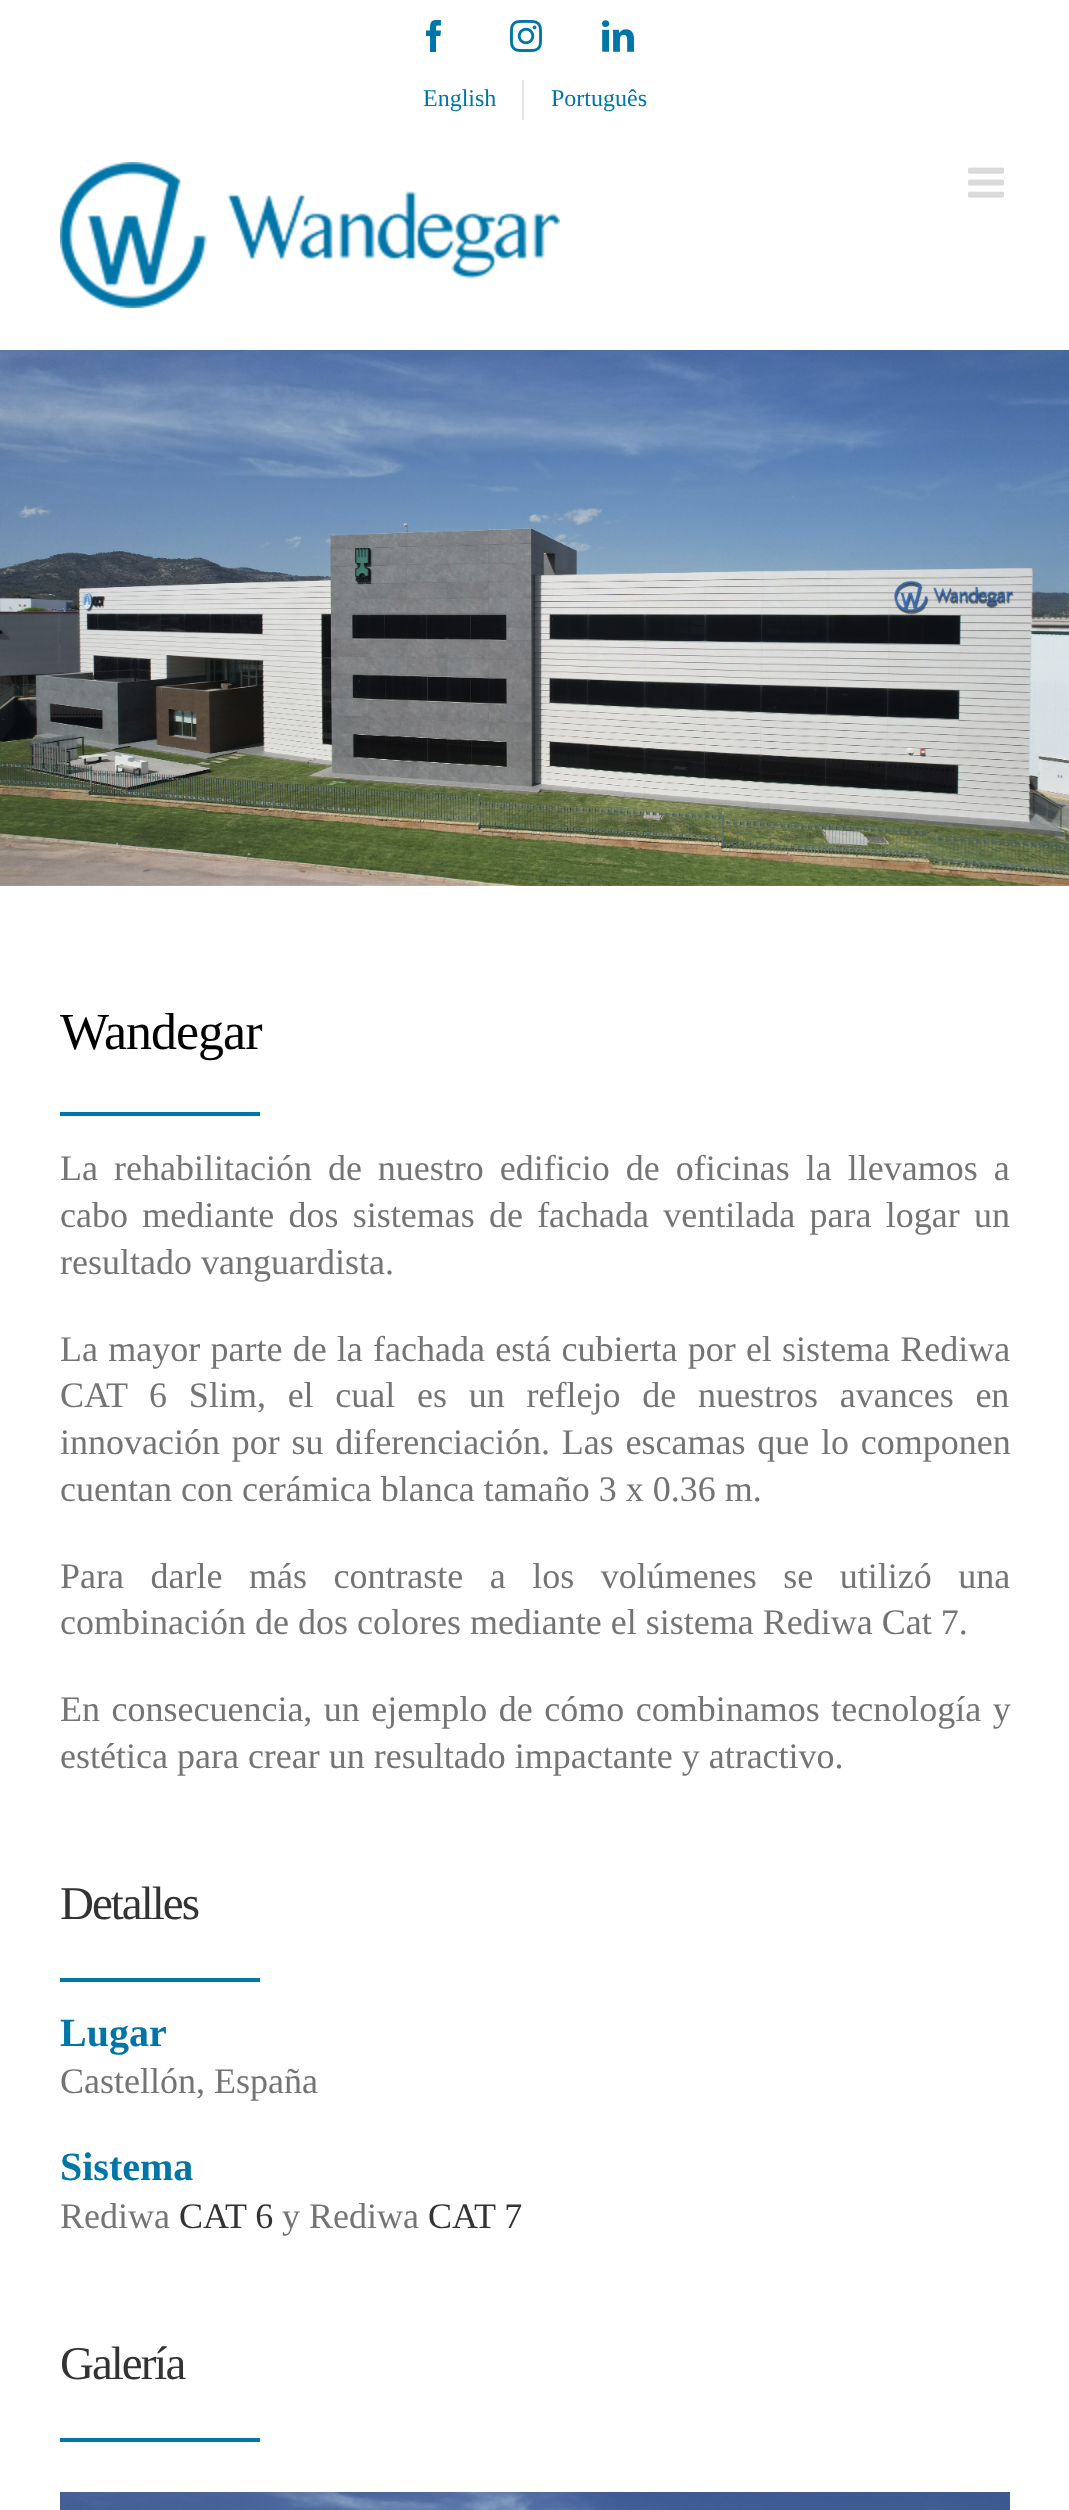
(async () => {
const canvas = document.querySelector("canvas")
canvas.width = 1069
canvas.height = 2510
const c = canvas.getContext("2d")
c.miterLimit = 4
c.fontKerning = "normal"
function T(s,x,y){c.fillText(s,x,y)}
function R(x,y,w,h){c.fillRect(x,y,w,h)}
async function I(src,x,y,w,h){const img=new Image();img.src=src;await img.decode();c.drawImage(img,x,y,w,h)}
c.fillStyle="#fff"
R(0,0,1069,2510)
await I("1.png",426,20,15,32)
await I("2.png",510,20,32,32)
await I("3.png",602,20,32,32)
c.font="24px Liberation Serif"
c.fillStyle="#0076a8"
T("English",423,106)
c.fillStyle="#e5e5e5"
R(522,80,2,40)
c.fillStyle="#0076a8"
T("Português",551,106)
await I("4.png",60,162,500,146)
await I("5.png",968,167,36,31)
await I("6.png",0,350,1069,536)
c.letterSpacing="-1px"
c.font="52px Liberation Serif"
c.fillStyle="#000"
T("Wandegar",60,1049)
c.fillStyle="#0076a8"
R(60,1112,200,4)
c.letterSpacing="0px"
c.wordSpacing="7px"
c.font="36px Liberation Serif"
c.fillStyle="#747474"
T("La rehabilitación de nuestro edificio de oficinas la llevamos a",60,1180)
c.wordSpacing="5.25px"
T("cabo mediante dos sistemas de fachada ventilada para logar un",60,1227)
c.wordSpacing="0px"
T("resultado vanguardista.",60,1274)
c.wordSpacing="1.25px"
T("La mayor parte de la fachada está cubierta por el sistema Rediwa",60,1361)
c.wordSpacing="12.75px"
T("CAT 6 Slim, el cual es un reflejo de nuestros avances en",60,1407)
c.wordSpacing="2.75px"
T("innovación por su diferenciación. Las escamas que lo componen",60,1454)
c.wordSpacing="0px"
T("cuentan con cerámica blanca tamaño 3 x 0.36 m.",60,1501)
c.wordSpacing="17.5px"
T("Para darle más contraste a los volúmenes se utilizó una",60,1588)
c.wordSpacing="0px"
T("combinación de dos colores mediante el sistema Rediwa Cat 7.",60,1634)
c.wordSpacing="2.5px"
T("En consecuencia, un ejemplo de cómo combinamos tecnología y",60,1721)
c.wordSpacing="0px"
T("estética para crear un resultado impactante y atractivo.",60,1768)
c.letterSpacing="-2px"
c.font="47px Liberation Serif"
c.fillStyle="#333"
T("Detalles",60,1919)
c.fillStyle="#0076a8"
R(60,1978,200,4)
c.letterSpacing="0px"
c.font="bold 40px Liberation Serif"
T("Lugar",60,2046)
c.font="36px Liberation Serif"
c.fillStyle="#747474"
T("Castellón, España",60,2093)
c.font="bold 40px Liberation Serif"
c.fillStyle="#0076a8"
T("Sistema",60,2180)
c.font="36px Liberation Serif"
c.fillStyle="#747474"
T("Rediwa",60,2228)
c.fillStyle="#333"
T("CAT 6",179,2228)
c.fillStyle="#747474"
T("y Rediwa",282,2228)
c.fillStyle="#333"
T("CAT 7",428,2228)
c.letterSpacing="-2px"
c.font="47px Liberation Serif"
T("Galería",60,2379)
c.fillStyle="#0076a8"
R(60,2438,200,4)
await I("7.png",60,2492,950,18)
})()
